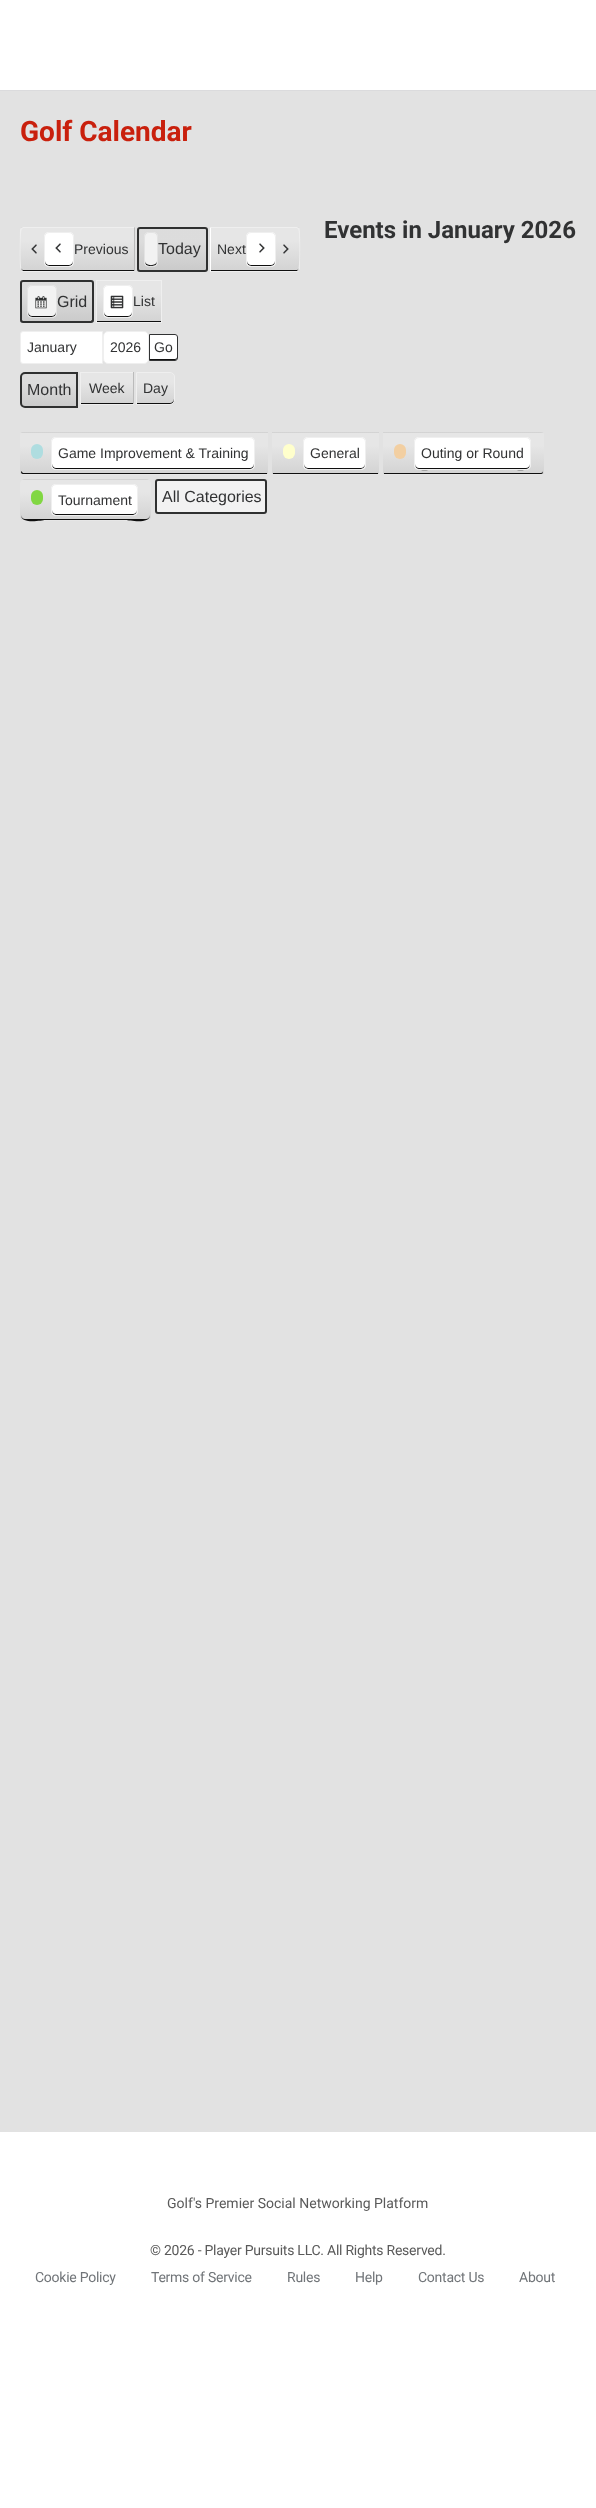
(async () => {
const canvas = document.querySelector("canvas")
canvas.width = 596
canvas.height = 2508
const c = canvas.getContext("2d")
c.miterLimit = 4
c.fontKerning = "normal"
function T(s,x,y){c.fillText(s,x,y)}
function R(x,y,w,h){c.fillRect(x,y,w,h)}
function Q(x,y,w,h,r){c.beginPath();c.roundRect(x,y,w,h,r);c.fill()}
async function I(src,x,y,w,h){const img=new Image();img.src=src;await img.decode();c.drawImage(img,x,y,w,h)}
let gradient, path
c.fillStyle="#e2e2e2"
R(0,0,596,2508)
c.fillStyle="#dbdbdd"
R(0,90,596,1)
c.fillStyle="#fff"
R(0,0,596,90)
c.font="bold 28px Roboto"
c.fillStyle="#c9200d"
T("Golf Calendar",20,141)
c.font="bold 24px Roboto"
c.fillStyle="#313233"
T("Events in January 2026",324,238)
c.save()
c.beginPath()
c.roundRect(20,227,115,45,[3,0,0,3])
c.clip()
gradient = c.createLinearGradient(78,228,78,185)
gradient.addColorStop(0,"#d3d3d3")
gradient.addColorStop(.7,"#e6e6e6")
c.fillStyle = gradient
R(20,227,115,1)
gradient = c.createLinearGradient(78,271,78,228)
gradient.addColorStop(0,"#d3d3d3")
gradient.addColorStop(.7,"#e6e6e6")
c.fillStyle = gradient
R(20,228,114,43)
gradient = c.createLinearGradient(78,314,78,271)
gradient.addColorStop(0,"#d3d3d3")
gradient.addColorStop(.7,"#e6e6e6")
c.fillStyle = gradient
R(20,271,115,1)
c.restore()
c.fillStyle="#0f0f0f"
path = new Path2D("M21 268c0 1 0 3 2 3h111v-1h-111c-1 0-2-1-2-2z")
c.fill(path)
c.fillStyle="#efefef"
path = new Path2D("M23 227l-2 1l1 1l1-1h111l1-1z")
c.fill(path)
c.fillStyle="#bbb"
path = new Path2D("M135 227l-1 1v43l1 1z")
c.fill(path)
c.fillStyle="#efefef"
path = new Path2D("M135 272l-1-1h-111l-1-1l-1 1l2 1z")
c.fill(path)
path = new Path2D("M20 230c0 5-1 39 1 41l1-1c-2-1-2-40 0-41l-1-1z")
c.fill(path)
await I("1.png",31,244,6,10)
c.fillStyle="#fff"
Q(44,232,30,35,5)
c.fillStyle="#0f0f0f"
path = new Path2D("M45 261c0 5 3 5 7.5 5h13c4.5 0 7.5 0 7.5-5c0 2-2 4-4 4h-20c-2 0-4-2-4-4z")
c.fill(path)
c.beginPath()
c.roundRect(44.5,232.5,29,34,4.5)
c.strokeStyle="#efefef"
c.stroke()
await I("2.png",55,243,6,10)
c.font="14px Liberation Sans"
c.fillStyle="#313233"
T("Previous",74,254)
c.fillStyle="#f2f2f2"
Q(137,227,71,45,3)
c.save()
c.beginPath()
c.roundRect(137,227,71,45,3)
c.clip()
gradient = c.createLinearGradient(173,271,173,228)
gradient.addColorStop(0,"#c8c8c8f2")
gradient.addColorStop(.7,"#dbdbdbf2")
c.fillStyle = gradient
R(137,228,71,43)
c.restore()
Q(144,232,14,35,5)
c.fillStyle="#0e0e0e"
path = new Path2D("M145 261c0 4 2 5 5.5 5c4 0 6.5-.5 6.5-5c0 5.5-12 5.5-12 0z")
c.fill(path)
c.beginPath()
c.roundRect(144.5,232.5,13,34,4.5)
c.strokeStyle="#e3e3e3"
c.stroke()
c.beginPath()
c.roundRect(138,228,69,43,2)
c.strokeStyle="#2f3030"
c.lineWidth=2
c.stroke()
c.font="16px Liberation Sans"
c.fillStyle="#313233"
T("Today",158,254)
c.save()
c.beginPath()
c.roundRect(210,227,90,45,[0,3,3,0])
c.clip()
gradient = c.createLinearGradient(255,228,255,185)
gradient.addColorStop(0,"#d3d3d3")
gradient.addColorStop(.7,"#e6e6e6")
c.fillStyle = gradient
R(210,227,90,1)
gradient = c.createLinearGradient(255,271,255,228)
gradient.addColorStop(0,"#d3d3d3")
gradient.addColorStop(.7,"#e6e6e6")
c.fillStyle = gradient
R(211,228,89,43)
gradient = c.createLinearGradient(255,314,255,271)
gradient.addColorStop(0,"#d3d3d3")
gradient.addColorStop(.7,"#e6e6e6")
c.fillStyle = gradient
R(210,271,90,1)
c.restore()
c.fillStyle="#0f0f0f"
path = new Path2D("M211 270v1h86c1 0 2-1 2-2v-1c0 1-1 2-2 2z")
c.fill(path)
c.fillStyle="#efefef"
path = new Path2D("M210 227l1 1h86l1 1l1-1l-2-1z")
c.fill(path)
path = new Path2D("M300 269c0-5 1-39-1-41l-1 1c2 1 2 40 0 41l1 1z")
c.fill(path)
path = new Path2D("M297 272l2-1l-1-1l-1 1h-86l-1 1z")
c.fill(path)
c.fillStyle="#fff"
path = new Path2D("M210 227v45l1-1v-43z")
c.fill(path)
c.font="14px Liberation Sans"
c.fillStyle="#313233"
T("Next",217,254)
c.fillStyle="#fff"
Q(246,232,30,35,5)
c.fillStyle="#0f0f0f"
path = new Path2D("M247 261c0 5 3 5 7.5 5h13c4.5 0 7.5 0 7.5-5c0 2-2 4-4 4h-20c-2 0-4-2-4-4z")
c.fill(path)
c.beginPath()
c.roundRect(246.5,232.5,29,34,4.5)
c.strokeStyle="#efefef"
c.lineWidth=1
c.stroke()
await I("3.png",259,243,6,10)
await I("4.png",283,244,6,10)
c.fillStyle="#f2f2f2"
Q(20,280,74,43,3)
c.save()
c.beginPath()
c.roundRect(20,280,74,43,3)
c.clip()
gradient = c.createLinearGradient(57,322,57,281)
gradient.addColorStop(0,"#c8c8c8f2")
gradient.addColorStop(.7,"#dbdbdbf2")
c.fillStyle = gradient
R(20,281,74,41)
c.restore()
c.fillStyle="#0e0e0e"
path = new Path2D("M21 319c0 6 10 3 13 3h46c3 0 13 3 13-3l-1 1l-1 1h-68c-1 0-2-1-2-2z")
c.fill(path)
c.fillStyle="#f2f2f2"
Q(27,285,30,33,5)
c.fillStyle="#0e0e0e"
path = new Path2D("M28 312c0 5 3 5 7.5 5h13c4.5 0 7.5 0 7.5-5c0 2-2 4-4 4h-20c-2 0-4-2-4-4z")
c.fill(path)
c.beginPath()
c.roundRect(27.5,285.5,29,32,4.5)
c.strokeStyle="#e3e3e3"
c.stroke()
await I("5.png",35,296,12,13)
c.beginPath()
c.roundRect(21,281,72,41,2)
c.strokeStyle="#2f3030"
c.lineWidth=2
c.stroke()
c.font="16px Liberation Sans"
c.fillStyle="#313233"
T("Grid",57,307)
gradient = c.createLinearGradient(129,322,129,281)
gradient.addColorStop(0,"#d3d3d3")
gradient.addColorStop(.7,"#e6e6e6")
c.fillStyle = gradient
R(97,281,64,40)
c.fillStyle="#0f0f0f"
R(97,321,64,1)
c.strokeStyle="#efefef"
c.lineWidth=1
c.strokeRect(96.5,280.5,65,42)
c.fillStyle="#fff"
Q(103,285,30,33,5)
c.fillStyle="#0f0f0f"
path = new Path2D("M104 312c0 5 3 5 7.5 5h13c4.5 0 7.5 0 7.5-5c0 2-2 4-4 4h-20c-2 0-4-2-4-4z")
c.fill(path)
c.beginPath()
c.roundRect(103.5,285.5,29,32,4.5)
c.stroke()
await I("6.png",110,295,14,14)
c.font="14px Liberation Sans"
c.fillStyle="#313233"
T("List",133,306)
c.fillStyle="#fff"
c.beginPath()
c.roundRect(20.5,331.5,82,32,[2.5,0,0,2.5])
c.fill()
c.stroke()
c.fillStyle="#313233"
T("January",27,352)
c.fillStyle="#fff"
c.beginPath()
c.roundRect(103.5,331.5,45,32,4.5)
c.fill()
c.stroke()
c.fillStyle="#313233"
T("2026",110,352)
c.fillStyle="#fff"
c.beginPath()
c.roundRect(149,334,29,27,[0,3,3,0])
c.fill()
c.fillStyle="#0f0f0f"
path = new Path2D("M150 359v1h25c1 0 2-1 2-2v-1c0 1-1 2-2 2z")
c.fill(path)
c.beginPath()
c.roundRect(149.5,334.5,28,26,[0,2.5,2.5,0])
c.strokeStyle="#313233"
c.stroke()
c.fillStyle="#313233"
T("Go",154,352)
c.fillStyle="#f2f2f2"
c.beginPath()
c.roundRect(20,372,58,36,[5,0,0,5])
c.fill()
c.save()
c.beginPath()
c.roundRect(20,372,58,36,[5,0,0,5])
c.clip()
gradient = c.createLinearGradient(49,407,49,373)
gradient.addColorStop(0,"#c8c8c8f2")
gradient.addColorStop(.7,"#dbdbdbf2")
c.fillStyle = gradient
R(20,373,56,34)
c.restore()
c.beginPath()
c.roundRect(21,373,56,34,[4,0,0,4])
c.strokeStyle="#2f3030"
c.lineWidth=2
c.stroke()
c.font="16px Liberation Sans"
c.fillStyle="#313233"
T("Month",27,395)
gradient = c.createLinearGradient(107,404,107,373)
gradient.addColorStop(0,"#d3d3d3")
gradient.addColorStop(.7,"#e6e6e6")
c.fillStyle = gradient
R(81,373,52,30)
c.fillStyle="#0f0f0f"
R(81,403,52,1)
c.fillStyle="#efefef"
R(80,372,54,1)
c.fillStyle="#bbb"
R(133,372,1,33)
c.fillStyle="#efefef"
R(80,404,54,1)
R(80,372,1,33)
c.font="14px Liberation Sans"
c.fillStyle="#313233"
T("Week",89,393)
c.save()
c.beginPath()
c.roundRect(136,372,39,33,[0,5,5,0])
c.clip()
gradient = c.createLinearGradient(156,404,156,373)
gradient.addColorStop(0,"#d3d3d3")
gradient.addColorStop(.7,"#e6e6e6")
c.fillStyle = gradient
R(137,373,38,31)
c.restore()
c.fillStyle="#0f0f0f"
path = new Path2D("M137 403v1h33c2 0 4-2 4-4v-1c0 2-2 4-4 4z")
c.fill(path)
c.beginPath()
c.roundRect(136.5,372.5,38,32,[0,4.5,4.5,0])
c.strokeStyle="#efefef"
c.lineWidth=1
c.stroke()
c.fillStyle="#313233"
T("Day",143,393)
c.save()
c.beginPath()
c.roundRect(20,432,248,43,[3,0,0,3])
c.clip()
gradient = c.createLinearGradient(144,433,144,392)
gradient.addColorStop(0,"#d3d3d3")
gradient.addColorStop(.7,"#e6e6e6")
c.fillStyle = gradient
R(20,432,248,1)
gradient = c.createLinearGradient(144,474,144,433)
gradient.addColorStop(0,"#d3d3d3")
gradient.addColorStop(.7,"#e6e6e6")
c.fillStyle = gradient
R(20,433,248,41)
gradient = c.createLinearGradient(144,515,144,474)
gradient.addColorStop(0,"#d3d3d3")
gradient.addColorStop(.7,"#e6e6e6")
c.fillStyle = gradient
R(20,474,248,1)
c.restore()
c.fillStyle="#0f0f0f"
path = new Path2D("M21 471c0 1 0 3 2 3h244v-1h-244z")
c.fill(path)
c.fillStyle="#afdde0"
Q(31,444,12,15,6)
c.fillStyle="#fff"
Q(51,437,204,33,5)
c.fillStyle="#0f0f0f"
path = new Path2D("M52 464v1c0 2 2 4 4 4h194c2 0 4-2 4-4v-1c0 2-2 4-4 4h-194c-2 0-4-2-4-4z")
c.fill(path)
c.beginPath()
c.roundRect(51.5,437.5,203,32,4.5)
c.stroke()
c.fillStyle="#313233"
T("Game Improvement & Training",58,458)
gradient = c.createLinearGradient(326,433,326,392)
gradient.addColorStop(0,"#d3d3d3")
gradient.addColorStop(.7,"#e6e6e6")
c.fillStyle = gradient
R(272,432,107,1)
gradient = c.createLinearGradient(326,474,326,433)
gradient.addColorStop(0,"#d3d3d3")
gradient.addColorStop(.7,"#e6e6e6")
c.fillStyle = gradient
R(272,433,107,41)
gradient = c.createLinearGradient(326,515,326,474)
gradient.addColorStop(0,"#d3d3d3")
gradient.addColorStop(.7,"#e6e6e6")
c.fillStyle = gradient
R(272,474,107,1)
c.fillStyle="#0f0f0f"
R(273,473,105,1)
c.fillStyle="#ffc"
Q(283,444,12,15,6)
c.fillStyle="#fff"
Q(303,437,63,33,5)
c.fillStyle="#0f0f0f"
path = new Path2D("M304 464c0 7 8 5 13 5h35c5 0 13 2 13-5c0 2-2 4-4 4h-53c-2 0-4-2-4-4z")
c.fill(path)
c.beginPath()
c.roundRect(303.5,437.5,62,32,4.5)
c.stroke()
c.fillStyle="#313233"
T("General",310,458)
c.save()
c.beginPath()
c.roundRect(383,432,161,43,[0,3,3,0])
c.clip()
gradient = c.createLinearGradient(464,433,464,392)
gradient.addColorStop(0,"#d3d3d3")
gradient.addColorStop(.7,"#e6e6e6")
c.fillStyle = gradient
R(383,432,161,1)
gradient = c.createLinearGradient(464,474,464,433)
gradient.addColorStop(0,"#d3d3d3")
gradient.addColorStop(.7,"#e6e6e6")
c.fillStyle = gradient
R(383,433,161,41)
gradient = c.createLinearGradient(464,515,464,474)
gradient.addColorStop(0,"#d3d3d3")
gradient.addColorStop(.7,"#e6e6e6")
c.fillStyle = gradient
R(383,474,161,1)
c.restore()
c.fillStyle="#0f0f0f"
path = new Path2D("M384 473v1h157c2 0 2-2 2-3c0 1-1 2-2 2z")
c.fill(path)
c.fillStyle="#f2cfa2"
Q(394,444,12,15,6)
c.fillStyle="#fff"
Q(414,437,117,33,5)
c.fillStyle="#0f0f0f"
path = new Path2D("M415 464c0 10 18 5 22 5h71c4 0 22 5 22-5c0 2-2 4-4 4h-107c-2 0-4-2-4-4z")
c.fill(path)
c.beginPath()
c.roundRect(414.5,437.5,116,32,4.5)
c.stroke()
c.fillStyle="#313233"
T("Outing or Round",421,458)
c.save()
c.beginPath()
c.roundRect(20,479,131,42,5)
c.clip()
gradient = c.createLinearGradient(86,480,86,440)
gradient.addColorStop(0,"#d3d3d3")
gradient.addColorStop(.7,"#e6e6e6")
c.fillStyle = gradient
R(20,479,131,1)
gradient = c.createLinearGradient(86,520,86,480)
gradient.addColorStop(0,"#d3d3d3")
gradient.addColorStop(.7,"#e6e6e6")
c.fillStyle = gradient
R(20,480,131,40)
gradient = c.createLinearGradient(86,560,86,520)
gradient.addColorStop(0,"#d3d3d3")
gradient.addColorStop(.7,"#e6e6e6")
c.fillStyle = gradient
R(20,520,131,1)
c.restore()
c.fillStyle="#0f0f0f"
path = new Path2D("M21 515c0 10 22 5 24 5h81c2 0 24 5 24-5c0 2-2 4-4 4h-121c-2 0-4-2-4-4z")
c.fill(path)
c.fillStyle="#81d742"
Q(31,490,12,15,6)
c.fillStyle="#fff"
Q(51,484,87,32,5)
c.fillStyle="#0f0f0f"
path = new Path2D("M52 510c0 8 12 5 17 5h51c5 0 17 3 17-5c0 2-2 4-4 4h-77c-2 0-4-2-4-4z")
c.fill(path)
c.beginPath()
c.roundRect(51.5,484.5,86,31,4.5)
c.stroke()
c.fillStyle="#313233"
T("Tournament",58,505)
c.fillStyle="#f2f2f2"
Q(155,479,112,35,3)
c.beginPath()
c.roundRect(156,480,110,33,2)
c.strokeStyle="#2f3030"
c.lineWidth=2
c.stroke()
c.font="16px Liberation Sans"
c.fillStyle="#313233"
T("All Categories",162,502)
c.fillStyle="#fff"
R(0,2132,596,376)
c.font="14px Roboto"
c.fillStyle="#5a5a5a"
T("Golf's Premier Social Networking Platform",167,2208)
c.letterSpacing="-0.25px"
T("© 2026 - Player Pursuits LLC. All Rights Reserved.",150,2255)
c.fillStyle="#717579"
T("Cookie Policy",35,2282)
T("Terms of Service",151,2282)
T("Rules",287,2282)
T("Help",355,2282)
T("Contact Us",418,2282)
T("About",519,2282)
})()
